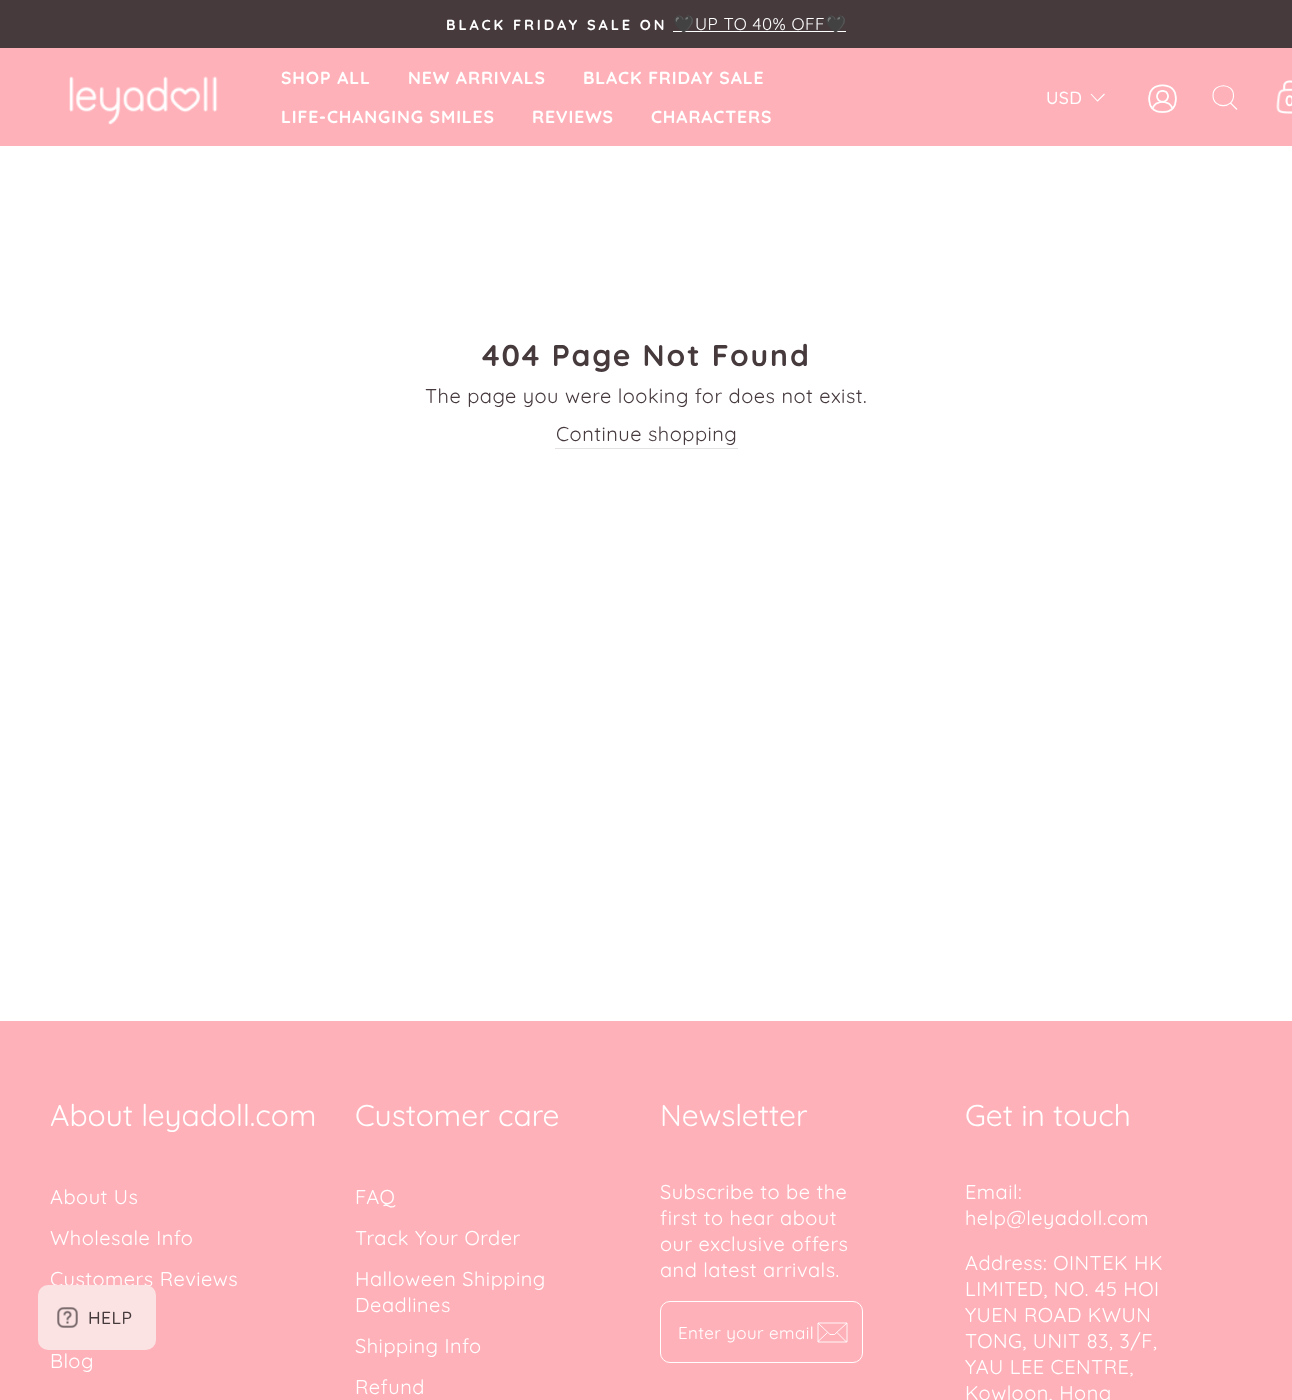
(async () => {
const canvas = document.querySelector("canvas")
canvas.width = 1292
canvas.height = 1400
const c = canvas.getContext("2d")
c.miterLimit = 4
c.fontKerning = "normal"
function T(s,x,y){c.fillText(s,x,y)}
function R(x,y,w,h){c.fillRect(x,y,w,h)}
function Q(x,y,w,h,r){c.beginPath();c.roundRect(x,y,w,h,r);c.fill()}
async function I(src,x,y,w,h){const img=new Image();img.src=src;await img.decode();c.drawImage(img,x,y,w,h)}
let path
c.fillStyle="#fff"
R(0,0,1292,1400)
c.fillStyle="#463a3d"
R(0,0,1292,48)
c.letterSpacing="2.9px"
c.font="bold 14.5px Quicksand"
c.fillStyle="#fff"
T("BLACK FRIDAY SALE ON",446,30)
R(673,31,173,1)
c.letterSpacing="0.5px"
c.font="17px Noto Color Emoji"
T("🖤",673,30)
c.font="17px Quicksand"
T("UP TO 40% OFF",695,30)
c.font="17px Noto Color Emoji"
T("🖤",825,30)
c.fillStyle="#ffb1b9"
R(0,48,1292,98)
await I("1.png",69,76,149,49)
c.letterSpacing="0.9px"
c.font="bold 17.5px Quicksand"
c.fillStyle="#fff"
T("SHOP ALL",281,84)
T("NEW ARRIVALS",408,84)
T("BLACK FRIDAY SALE",583,84)
T("LIFE-CHANGING SMILES",281,123)
T("REVIEWS",532,123)
T("CHARACTERS",651,123)
c.letterSpacing="0.5px"
c.font="500 17.5px Quicksand"
T("USD",1046,104)
path = new Path2D("M1091 94l6.5 7l7-7")
c.strokeStyle="#fff"
c.lineWidth=1.1
c.stroke(path)
await I("2.png",1148,84,29,29)
path = new Path2D("M1233.5 95.5c0 13.5-20.5 13.5-20.5 0c0-13 20.5-13 20.5 0zm3.5 14l-6.5-6.5")
c.stroke(path)
await I("3.png",1276,80,16,34)
c.letterSpacing="0.9px"
c.font="bold 15px Quicksand"
T("0",1285,106)
c.letterSpacing="1.9px"
c.font="bold 30px Quicksand"
c.fillStyle="#463a3d"
T("404 Page Not Found",482,366)
c.letterSpacing="0.5px"
c.font="20px Quicksand"
T("The page you were looking for does not exist.",425,403)
c.fillStyle="#e3e1e2"
R(555,448,183,1)
c.fillStyle="#463a3d"
T("Continue shopping",556,441)
c.fillStyle="#ffb1b9"
R(0,1021,1292,379)
c.letterSpacing="0px"
c.font="30px Quicksand"
c.fillStyle="#fff"
T("About leyadoll.com",50,1126)
c.letterSpacing="0.5px"
c.font="20px Quicksand"
T("About Us",50,1204)
T("Wholesale Info",50,1245)
T("Customers Reviews",50,1286)
T("Blog",50,1368)
c.letterSpacing="0px"
c.font="30px Quicksand"
T("Customer care",355,1126)
c.letterSpacing="0.5px"
c.font="20px Quicksand"
T("FAQ",355,1204)
T("Track Your Order",355,1245)
T("Halloween Shipping",355,1286)
T("Deadlines",355,1312)
T("Shipping Info",355,1353)
T("Refund",355,1394)
c.letterSpacing="0px"
c.font="30px Quicksand"
T("Newsletter",660,1126)
c.letterSpacing="0.5px"
c.font="20px Quicksand"
T("Subscribe to be the",660,1199)
T("first to hear about",660,1225)
T("our exclusive offers",660,1251)
T("and latest arrivals.",660,1277)
c.beginPath()
c.roundRect(660.5,1301.5,202,61,9.5)
c.lineWidth=1
c.stroke()
c.letterSpacing="0.4px"
c.font="17px Quicksand"
T("Enter your email",678,1339)
path = new Path2D("M847 1342h-29v-19h29zm-29-19l12 11.5h4.5l12.5-11.5m-19.5 9.5l-9.5 9m28.5 .5l-9.5-9.5")
c.lineWidth=0.9
c.stroke(path)
c.letterSpacing="0px"
c.font="30px Quicksand"
T("Get in touch",965,1126)
c.letterSpacing="0.5px"
c.font="20px Quicksand"
T("Email:",965,1199)
T("help@leyadoll.com",965,1225)
T("Address: OINTEK HK",965,1270)
T("LIMITED, NO. 45 HOI",965,1296)
T("YUEN ROAD KWUN",965,1322)
T("TONG, UNIT 83, 3/F,",965,1348)
T("YAU LEE CENTRE,",965,1374)
T("Kowloon, Hong",965,1400)
c.fillStyle="#fbe3e3"
Q(38,1285,118,65,10)
await I("4.png",57,1307,21,21)
c.font="500 17.5px Quicksand"
c.fillStyle="#463a3d"
T("HELP",88,1324)
})()
